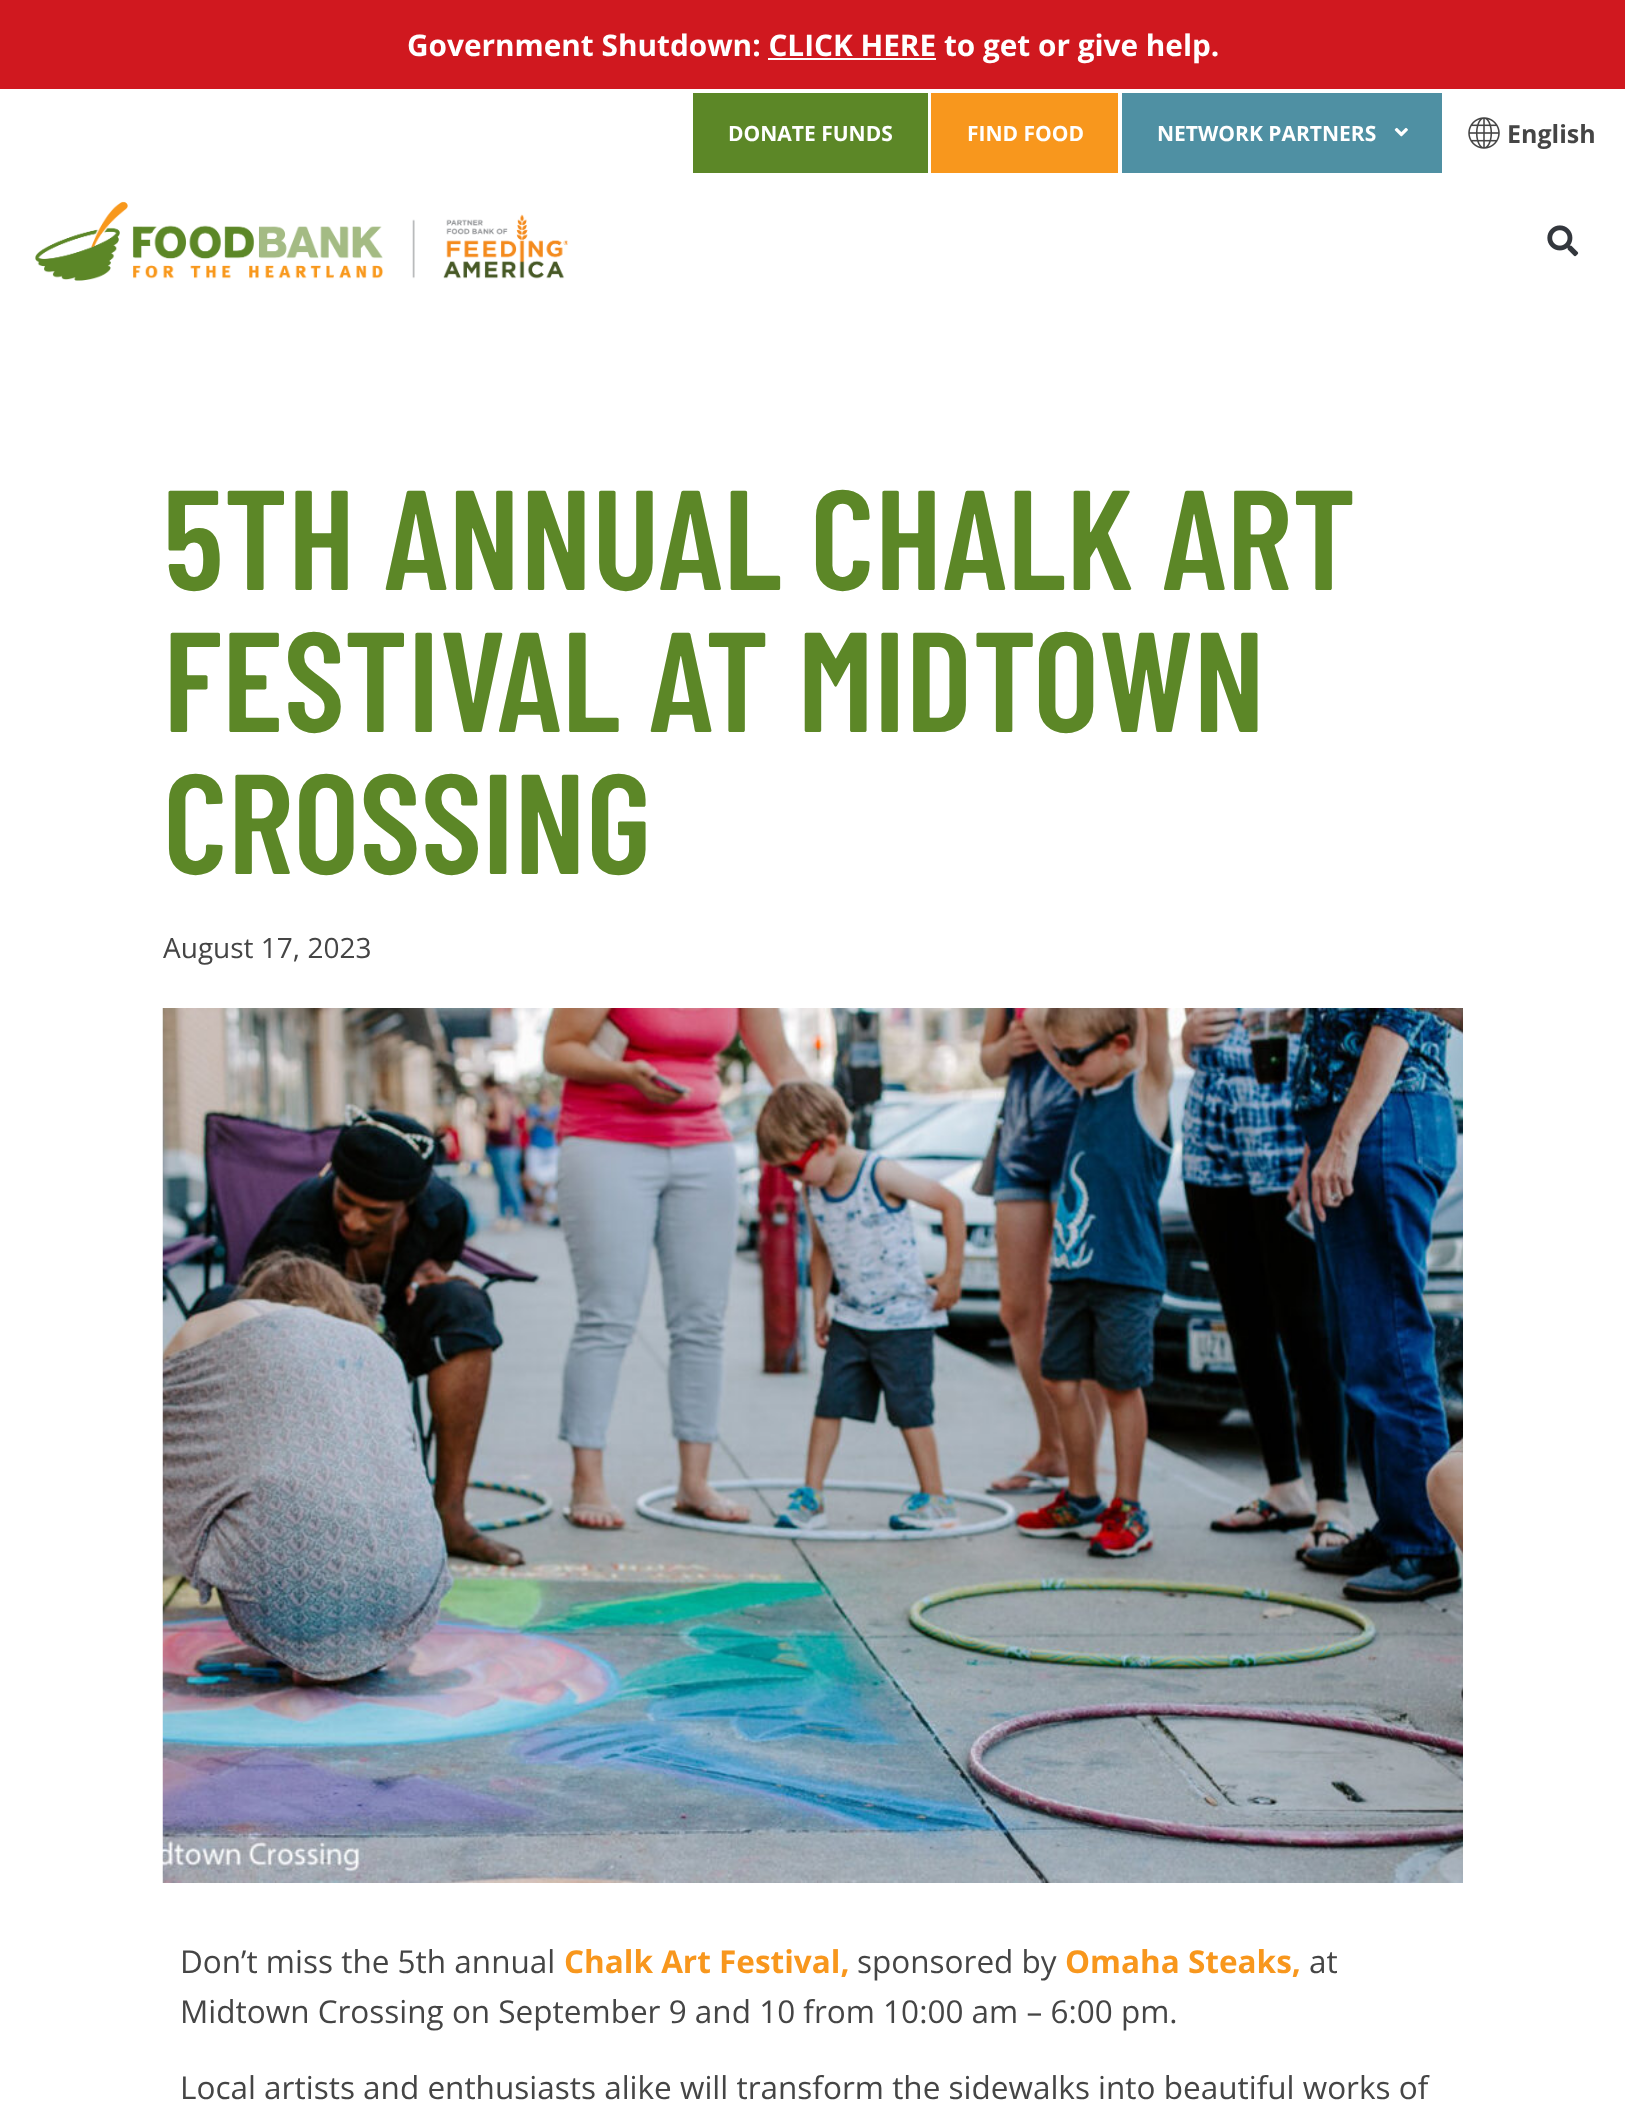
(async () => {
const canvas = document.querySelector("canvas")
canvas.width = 1625
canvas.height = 2111
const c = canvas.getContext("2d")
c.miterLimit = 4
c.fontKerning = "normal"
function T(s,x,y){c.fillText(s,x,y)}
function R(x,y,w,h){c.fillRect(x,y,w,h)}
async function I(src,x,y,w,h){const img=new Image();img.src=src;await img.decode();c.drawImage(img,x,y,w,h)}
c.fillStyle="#fff"
R(0,0,1625,2111)
c.fillStyle="#d0181f"
R(0,0,1625,89)
c.font="bold 29.75px Open Sans"
c.fillStyle="#fff"
T("Government Shutdown: CLICK HERE to get or give help.",407,56)
R(768,58,168,2)
c.fillStyle="#5c8727"
R(693,93,235,80)
c.font="bold 21px Open Sans"
c.fillStyle="#fff"
T("DONATE FUNDS",728,141)
c.fillStyle="#f8971d"
R(931,93,187,80)
c.fillStyle="#fff"
T("FIND FOOD",967,141)
c.fillStyle="#4f90a3"
R(1122,93,320,80)
c.fillStyle="#fff"
T("NETWORK PARTNERS",1157,141)
await I("1.png",1394,127,14,10)
await I("2.png",1468,117,32,32)
c.font="bold 25px Open Sans"
c.fillStyle="#454545"
T("English",1507,143)
await I("3.png",35,201,534,80)
await I("4.png",1547,225,32,32)
c.font="600 141.75px Barlow Condensed"
c.fillStyle="#5c8727"
T("5TH ANNUAL CHALK ART",163,590)
T("FESTIVAL AT MIDTOWN",163,732)
T("CROSSING",163,874)
c.font="28px Open Sans"
c.fillStyle="#454545"
T("August 17, 2023",163,958)
await I("5.png",162,1008,1301,875)
c.font="31.5px Open Sans"
T("Don’t miss the 5th annual",180,1973)
c.font="bold 31.5px Open Sans"
c.fillStyle="#f8971d"
T("Chalk Art Festival,",564,1973)
c.font="31.5px Open Sans"
c.fillStyle="#454545"
T("sponsored by",857,1973)
c.font="bold 31.5px Open Sans"
c.fillStyle="#f8971d"
T("Omaha Steaks,",1065,1973)
c.font="31.5px Open Sans"
c.fillStyle="#454545"
T("at",1309,1973)
T("Midtown Crossing on September 9 and 10 from 10:00 am – 6:00 pm.",180,2023)
T("Local artists and enthusiasts alike will transform the sidewalks into beautiful works of",180,2099)
})()
